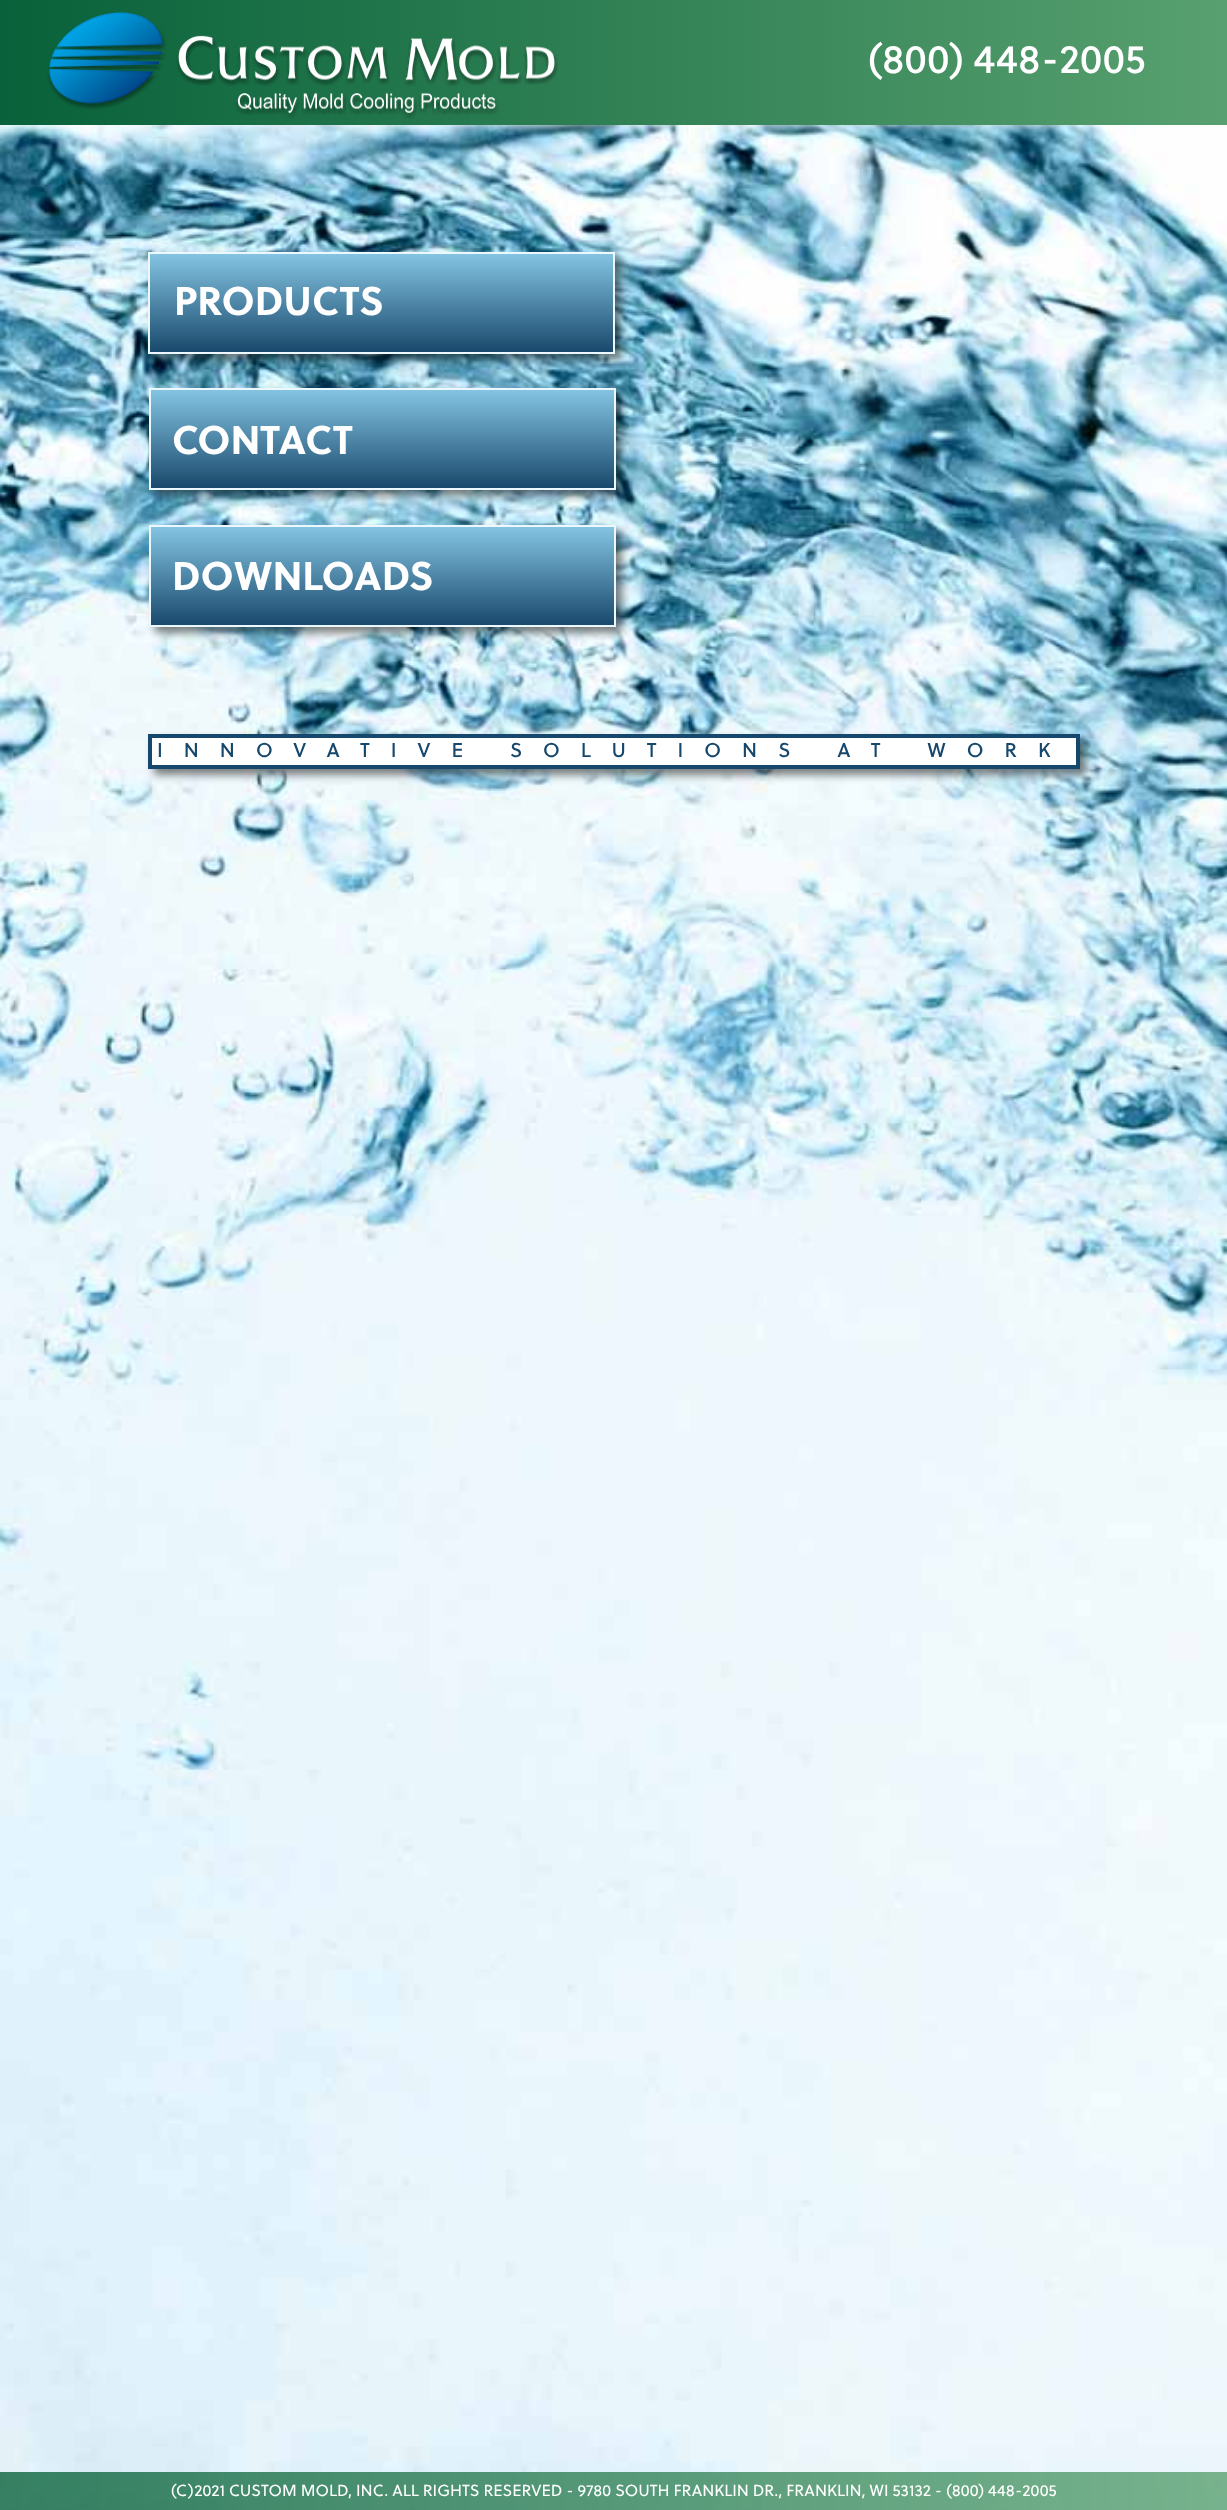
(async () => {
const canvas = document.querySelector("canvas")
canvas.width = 1227
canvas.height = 2510
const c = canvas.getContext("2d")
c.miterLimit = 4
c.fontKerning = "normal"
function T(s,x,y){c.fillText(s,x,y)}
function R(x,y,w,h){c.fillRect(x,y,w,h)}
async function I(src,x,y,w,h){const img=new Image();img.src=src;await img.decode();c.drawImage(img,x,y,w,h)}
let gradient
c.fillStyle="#fff"
R(0,0,1227,2510)
await I("1.png",0,125,1227,2385)
c.fillStyle="#ffffff80"
c.filter="blur(4px)"
c.beginPath()
c.rect(0,0,1227,125)
c.fill()
c.filter="none"
c.filter="blur(4px)"
c.beginPath()
c.rect(0,0,1227,125)
c.fill()
c.filter="none"
gradient = c.createLinearGradient(0,63,1227,62)
gradient.addColorStop(0,"#08613a")
gradient.addColorStop(1,"#58a06f")
c.fillStyle = gradient
R(0,0,1227,125)
await I("2.png",47,12,511,107)
c.font="40px 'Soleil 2'"
c.fillStyle="#fff"
T("(800) 448-2005",868,73)
c.fillStyle="#00000080"
c.filter="blur(4px)"
c.beginPath()
c.rect(154,258,467,102)
c.fill()
c.filter="none"
gradient = c.createLinearGradient(382,254,382,352)
gradient.addColorStop(0,"#84c4e2")
gradient.addColorStop(1,"#19496c")
c.fillStyle = gradient
R(150,254,463,98)
c.strokeStyle="#edf7fe"
c.lineWidth=2
c.strokeRect(149,253,465,100)
c.font="bold 40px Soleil"
c.fillStyle="#fff"
T("PRODUCTS",174,315)
c.fillStyle="#00000080"
c.filter="blur(4px)"
c.beginPath()
c.rect(155,394,467,102)
c.fill()
c.filter="none"
gradient = c.createLinearGradient(383,390,383,488)
gradient.addColorStop(0,"#84c4e2")
gradient.addColorStop(1,"#19496c")
c.fillStyle = gradient
R(151,390,463,98)
c.strokeRect(150,389,465,100)
c.fillStyle="#fff"
T("CONTACT",172,454)
c.fillStyle="#00000080"
c.filter="blur(4px)"
c.beginPath()
c.rect(155,531,467,102)
c.fill()
c.filter="none"
gradient = c.createLinearGradient(383,527,383,625)
gradient.addColorStop(0,"#84c4e2")
gradient.addColorStop(1,"#19496c")
c.fillStyle = gradient
R(151,527,463,98)
c.strokeRect(150,526,465,100)
c.fillStyle="#fff"
T("DOWNLOADS",172,590)
c.fillStyle="#00000080"
c.filter="blur(4px)"
c.beginPath()
c.rect(154,740,932,35)
c.fill()
c.filter="none"
c.fillStyle="#fff"
c.beginPath()
c.rect(150,736,928,31)
c.fill()
c.strokeStyle="#16476c"
c.lineWidth=4
c.stroke()
c.letterSpacing="21px"
c.font="20px 'Soleil 2'"
c.fillStyle="#16486d"
T("INNOVATIVE SOLUTIONS AT WORK",157,757)
c.letterSpacing="0px"
c.font="16px Soleil"
c.fillStyle="#fff"
T("(C)2021 CUSTOM MOLD, INC. ALL RIGHTS RESERVED - 9780 SOUTH FRANKLIN DR., FRANKLIN, WI 53132 - (800) 448-2005",171,2496)
})()
